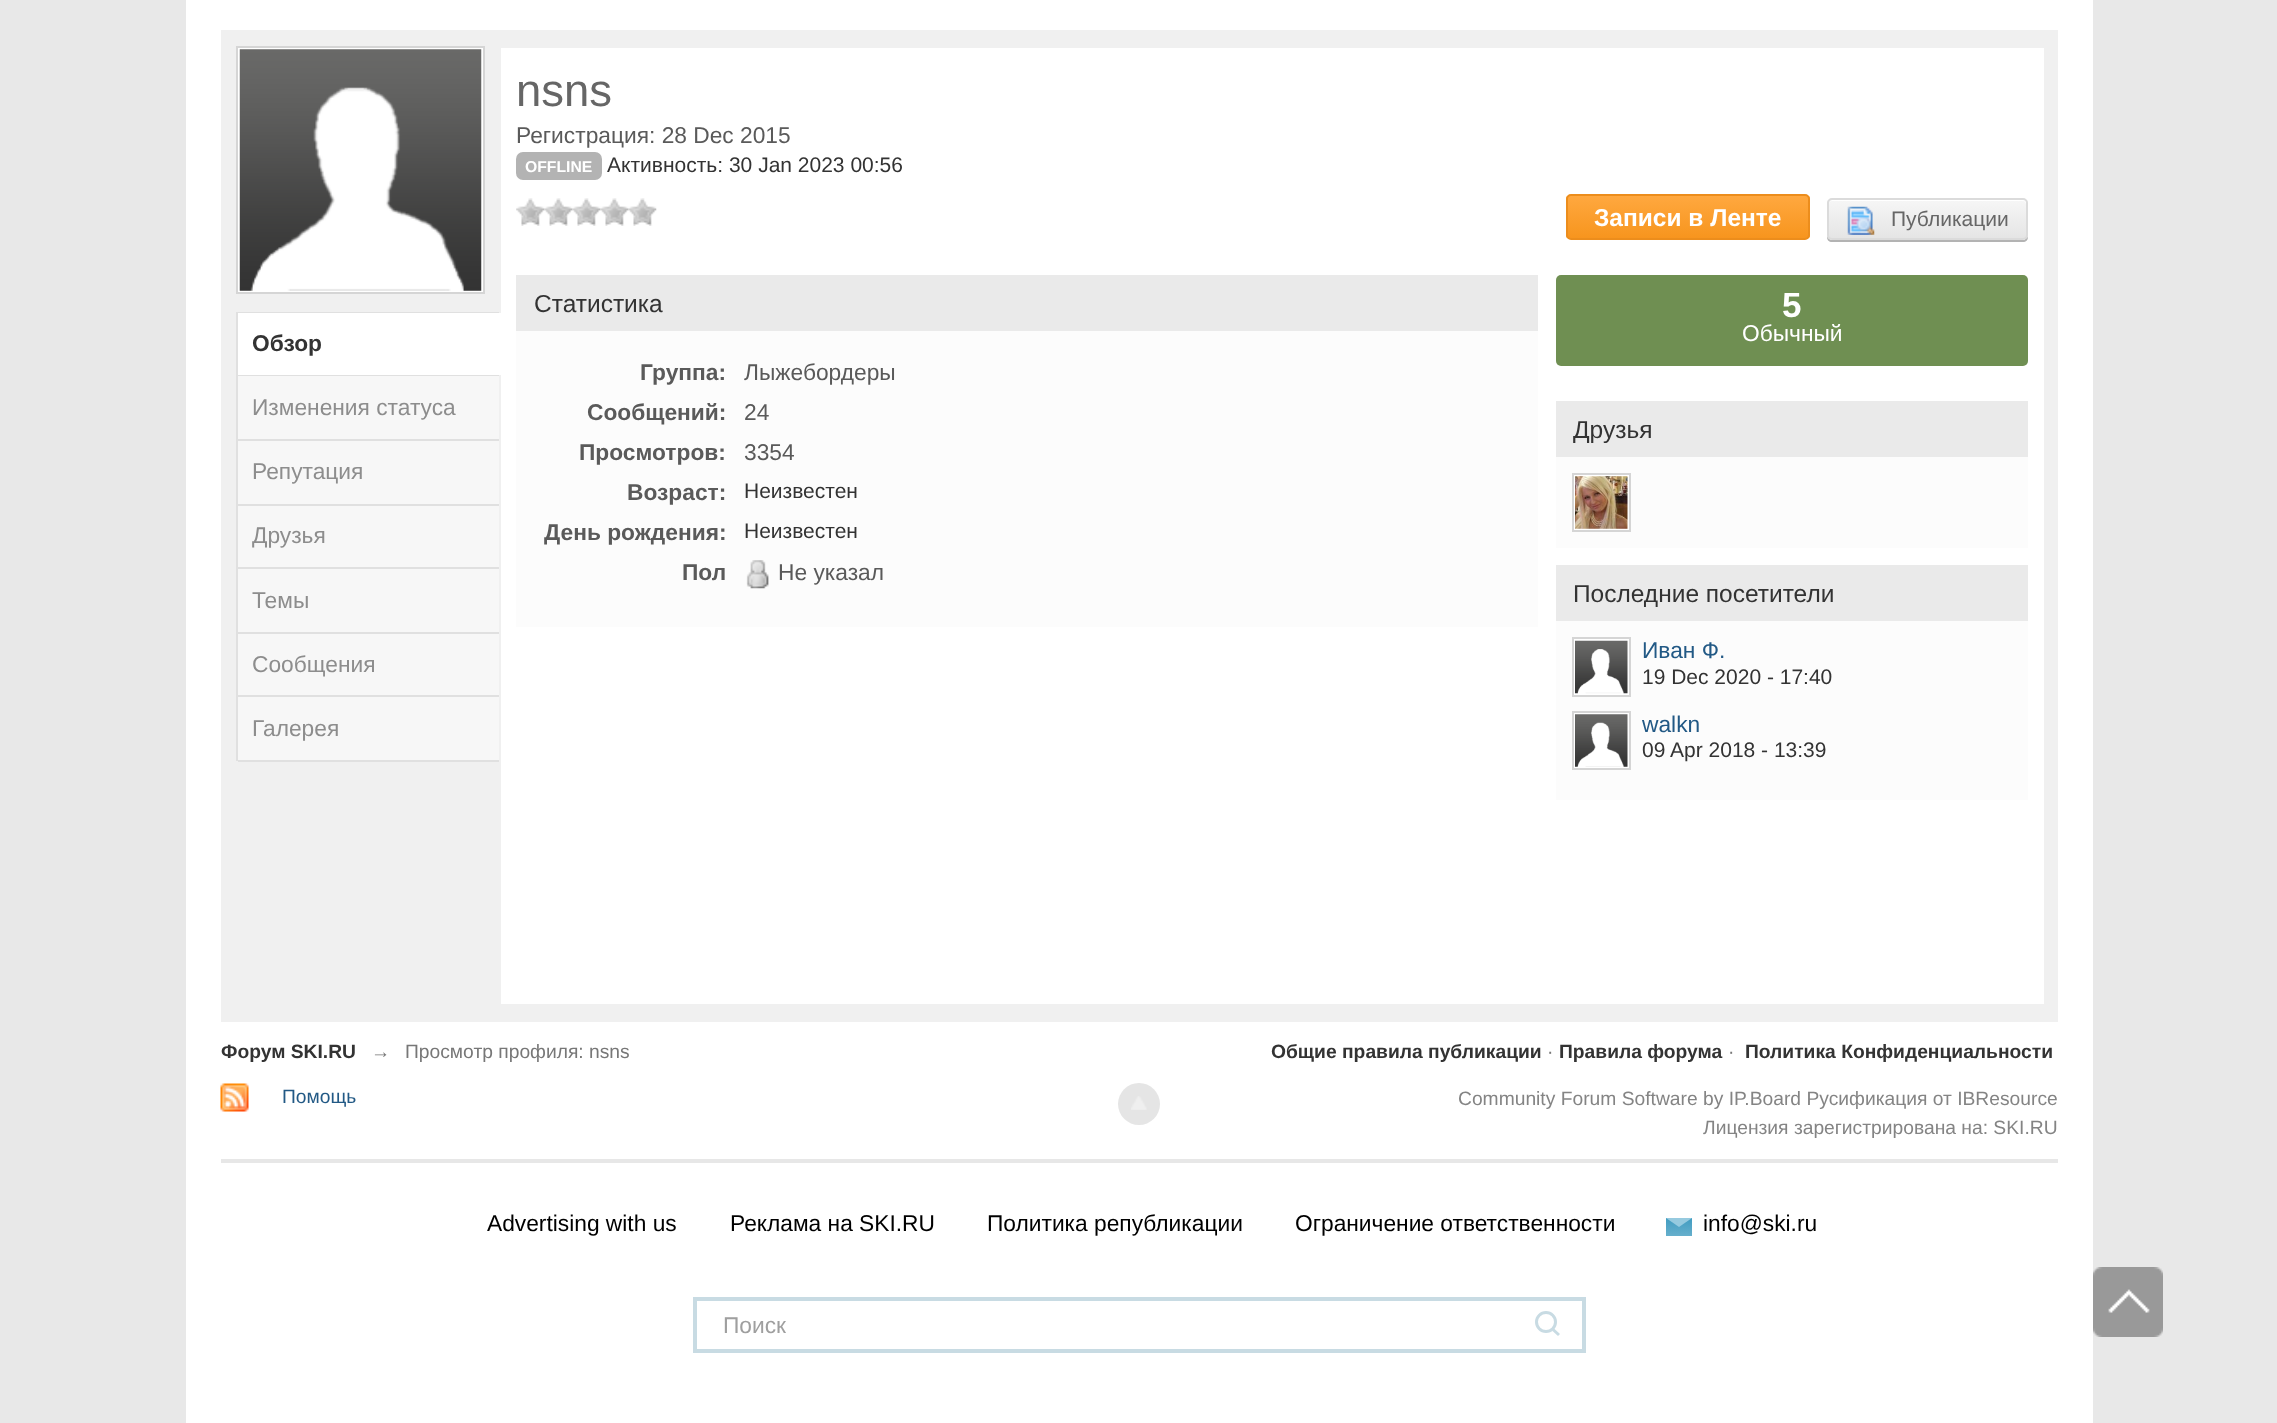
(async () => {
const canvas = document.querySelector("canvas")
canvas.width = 2277
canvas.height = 1423
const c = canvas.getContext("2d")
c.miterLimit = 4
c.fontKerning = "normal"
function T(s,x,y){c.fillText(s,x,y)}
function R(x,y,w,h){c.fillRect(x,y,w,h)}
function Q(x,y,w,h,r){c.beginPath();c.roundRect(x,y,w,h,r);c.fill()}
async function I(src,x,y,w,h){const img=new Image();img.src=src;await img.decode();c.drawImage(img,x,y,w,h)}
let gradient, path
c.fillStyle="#e8e8e8"
R(0,0,2277,1423)
c.fillStyle="#fff"
R(186,0,1907,1423)
c.fillStyle="#f0f0f0"
R(221,30,1837,992)
c.fillStyle="#fff"
c.beginPath()
c.rect(237,47,247,246)
c.fill()
c.strokeStyle="#d5d5d5"
c.lineWidth=2
c.stroke()
await I("1.png",239,49,243,242)
c.fillStyle="#e0e0e0"
R(236,312,263,1)
R(236,312,2,449)
R(238,375,261,1)
c.fillStyle="#fff"
R(238,313,263,62)
c.font="bold 22.75px Liberation Sans"
c.fillStyle="#333"
T("Обзор",252,351)
c.fillStyle="#f7f7f7"
R(238,376,261,63)
c.fillStyle="#e0e0e0"
R(238,439,261,2)
c.font="22.75px Liberation Sans"
c.fillStyle="#8d8d8d"
T("Изменения статуса",252,415)
c.fillStyle="#f7f7f7"
R(238,441,261,63)
c.fillStyle="#e0e0e0"
R(238,504,261,2)
c.fillStyle="#8d8d8d"
T("Репутация",252,479)
c.fillStyle="#f7f7f7"
R(238,506,261,61)
c.fillStyle="#e0e0e0"
R(238,567,261,2)
c.fillStyle="#8d8d8d"
T("Друзья",252,543)
c.fillStyle="#f7f7f7"
R(238,569,261,63)
c.fillStyle="#e0e0e0"
R(238,632,261,2)
c.fillStyle="#8d8d8d"
T("Темы",252,608)
c.fillStyle="#f7f7f7"
R(238,634,261,61)
c.fillStyle="#e0e0e0"
R(238,695,261,2)
c.fillStyle="#8d8d8d"
T("Сообщения",252,672)
c.fillStyle="#f7f7f7"
R(238,697,261,63)
c.fillStyle="#e0e0e0"
R(238,760,261,2)
c.fillStyle="#8d8d8d"
T("Галерея",252,736)
c.fillStyle="#fff"
R(501,48,1543,956)
c.font="45.5px Liberation Sans"
c.fillStyle="#666"
T("nsns",516,106)
c.font="22.75px Liberation Sans"
c.fillStyle="#5a5a5a"
T("Регистрация: 28 Dec 2015",516,143)
c.fillStyle="#b3b3b3"
Q(516,152,86,28,7)
c.font="bold 15.75px Liberation Sans"
c.fillStyle="#fff"
T("OFFLINE",525,172)
c.font="21px Liberation Sans"
c.fillStyle="#333"
T("Активность: 30 Jan 2023 00:56",607,172)
await I("2.png",516,198,29,28)
await I("3.png",544,198,29,28)
await I("4.png",572,198,29,28)
await I("4.png",600,198,29,28)
await I("4.png",628,198,29,28)
c.save()
c.beginPath()
c.roundRect(1566,194,244,46,5)
c.clip()
gradient = c.createLinearGradient(1568,196,1568,238)
gradient.addColorStop(0,"#ffa83f")
gradient.addColorStop(1,"#f7951e")
c.fillStyle = gradient
R(1566,196,244,42)
c.restore()
c.beginPath()
c.roundRect(1567,195,242,44,4)
c.strokeStyle="#ec8d1c"
c.stroke()
c.font="bold 24.5px Liberation Sans"
c.fillStyle="#fff"
T("Записи в Ленте",1594,226)
c.fillStyle="#b3b3b3"
path = new Path2D("M1827 234v3c0 3 2 5 5 5h191c3 0 5-2 5-5v-1c-1 2-3 4-5 4h-191c-3 0-5-3-5-6z")
c.fill(path)
c.save()
c.beginPath()
c.roundRect(1827,198,201,42,5)
c.clip()
gradient = c.createLinearGradient(1829,200,1829,238)
gradient.addColorStop(0,"#f6f6f6")
gradient.addColorStop(1,"#e5e5e5")
c.fillStyle = gradient
R(1827,200,201,38)
c.restore()
c.fillStyle="#fff"
path = new Path2D("M1832 201h191c5 0 3 12 3 14v22c1-1 1-2 1-3v-30c0-2-2-4-4-4h-190c-2 0-4 2-4 4v1c0-2 1-4 3-4z")
c.fill(path)
c.beginPath()
c.roundRect(1828,199,199,40,4)
c.strokeStyle="#dbdbdb"
c.stroke()
await I("5.png",1847,206,28,29)
c.font="21px Liberation Sans"
c.fillStyle="#666"
T("Публикации",1891,226)
c.fillStyle="#fcfcfc"
R(516,331,1022,296)
c.fillStyle="#eaeaea"
R(516,275,1022,56)
c.font="24.5px Liberation Sans"
c.fillStyle="#333"
T("Статистика",534,312)
c.font="bold 22.75px Liberation Sans"
c.fillStyle="#5a5a5a"
T("Группа:",640,380)
c.font="22.75px Liberation Sans"
T("Лыжебордеры",744,380)
c.font="bold 22.75px Liberation Sans"
T("Сообщений:",587,420)
c.font="22.75px Liberation Sans"
T("24",744,420)
c.font="bold 22.75px Liberation Sans"
T("Просмотров:",579,460)
c.font="22.75px Liberation Sans"
T("3354",744,460)
c.font="bold 22.75px Liberation Sans"
T("Возраст:",627,500)
c.font="21px Liberation Sans"
c.fillStyle="#333"
T("Неизвестен",744,498)
c.font="bold 22.75px Liberation Sans"
c.fillStyle="#5a5a5a"
T("День рождения:",544,540)
c.font="21px Liberation Sans"
c.fillStyle="#333"
T("Неизвестен",744,538)
c.font="bold 22.75px Liberation Sans"
c.fillStyle="#5a5a5a"
T("Пол",682,580)
await I("6.png",746,560,23,29)
c.font="22.75px Liberation Sans"
T("Не указал",778,580)
c.fillStyle="#6f8f52"
Q(1556,275,472,91,5)
c.font="bold 35px Liberation Sans"
c.fillStyle="#fff"
T("5",1782,317)
c.font="22.75px Liberation Sans"
T("Обычный",1742,341)
c.fillStyle="#fcfcfc"
R(1556,457,472,91)
c.fillStyle="#eaeaea"
R(1556,401,472,56)
c.font="24.5px Liberation Sans"
c.fillStyle="#333"
T("Друзья",1573,438)
c.fillStyle="#fff"
c.beginPath()
c.rect(1573,474,57,57)
c.fill()
c.strokeStyle="#d5d5d5"
c.stroke()
await I("7.png",1575,476,53,53)
c.fillStyle="#fcfcfc"
R(1556,621,472,179)
c.fillStyle="#eaeaea"
R(1556,565,472,56)
c.fillStyle="#333"
T("Последние посетители",1573,602)
c.fillStyle="#fff"
c.beginPath()
c.rect(1573,638,57,58)
c.fill()
c.stroke()
await I("8.png",1575,640,53,54)
c.font="22.75px Liberation Sans"
c.fillStyle="#225985"
T("Иван Ф.",1642,658)
c.font="21px Liberation Sans"
c.fillStyle="#333"
T("19 Dec 2020 - 17:40",1642,684)
c.fillStyle="#fff"
c.beginPath()
c.rect(1573,712,57,57)
c.fill()
c.stroke()
await I("9.png",1575,714,53,53)
c.font="22.75px Liberation Sans"
c.fillStyle="#225985"
T("walkn",1642,732)
c.font="21px Liberation Sans"
c.fillStyle="#333"
T("09 Apr 2018 - 13:39",1642,757)
c.font="bold 19.25px Liberation Sans"
T("Форум SKI.RU",221,1058)
c.font="19.25px Liberation Sans"
c.fillStyle="#777"
T("→",371,1058)
T("Просмотр профиля: nsns",405,1058)
c.font="bold 19.25px Liberation Sans"
c.fillStyle="#333"
T("Общие правила публикации",1271,1058)
c.font="19.25px Liberation Sans"
c.fillStyle="#777"
T("·",1547,1058)
c.font="bold 19.25px Liberation Sans"
c.fillStyle="#333"
T("Правила форума",1559,1058)
c.font="19.25px Liberation Sans"
c.fillStyle="#777"
T("·",1728,1058)
c.font="bold 19.25px Liberation Sans"
c.fillStyle="#333"
T("Политика Конфиденциальности",1745,1058)
await I("10.png",220,1083,29,29)
c.font="19.25px Liberation Sans"
c.fillStyle="#225985"
T("Помощь",282,1103)
c.fillStyle="#e5e5e5"
c.beginPath()
c.arc(1139,1104,21,0,7)
c.fill()
await I("11.png",1131,1096,16,14)
c.fillStyle="#848484"
T("Community Forum Software by IP.Board Русификация от IBResource",1458,1105)
T("Лицензия зарегистрирована на: SKI.RU",1703,1134)
c.fillStyle="#e7e7e7"
R(221,1159,1837,4)
c.font="22.75px Liberation Sans"
c.fillStyle="#000"
T("Advertising with us",487,1231)
T("Реклама на SKI.RU",730,1231)
T("Политика републикации",987,1231)
T("Ограничение ответственности",1295,1231)
gradient = c.createLinearGradient(1679,1218,1679,1236)
gradient.addColorStop(0,"#419cc1")
gradient.addColorStop(1,"#66afcc")
c.fillStyle = gradient
R(1666,1218,26,18)
c.fillStyle="#96cadf"
path = new Path2D("M1692 1218h-26l13 9z")
c.fill(path)
c.fillStyle="#000"
T("info@ski.ru",1703,1231)
c.strokeStyle="#c8dbe3"
c.lineWidth=4
c.strokeRect(695,1299,889,52)
c.fillStyle="#9f9f9f"
T("Поиск",723,1333)
c.beginPath()
c.arc(1546,1322,9.5,0,7)
c.lineWidth=3
c.stroke()
path = new Path2D("M1553 1329.5l6 5.5")
c.stroke(path)
await I("12.png",2093,1267,70,70)
})()
